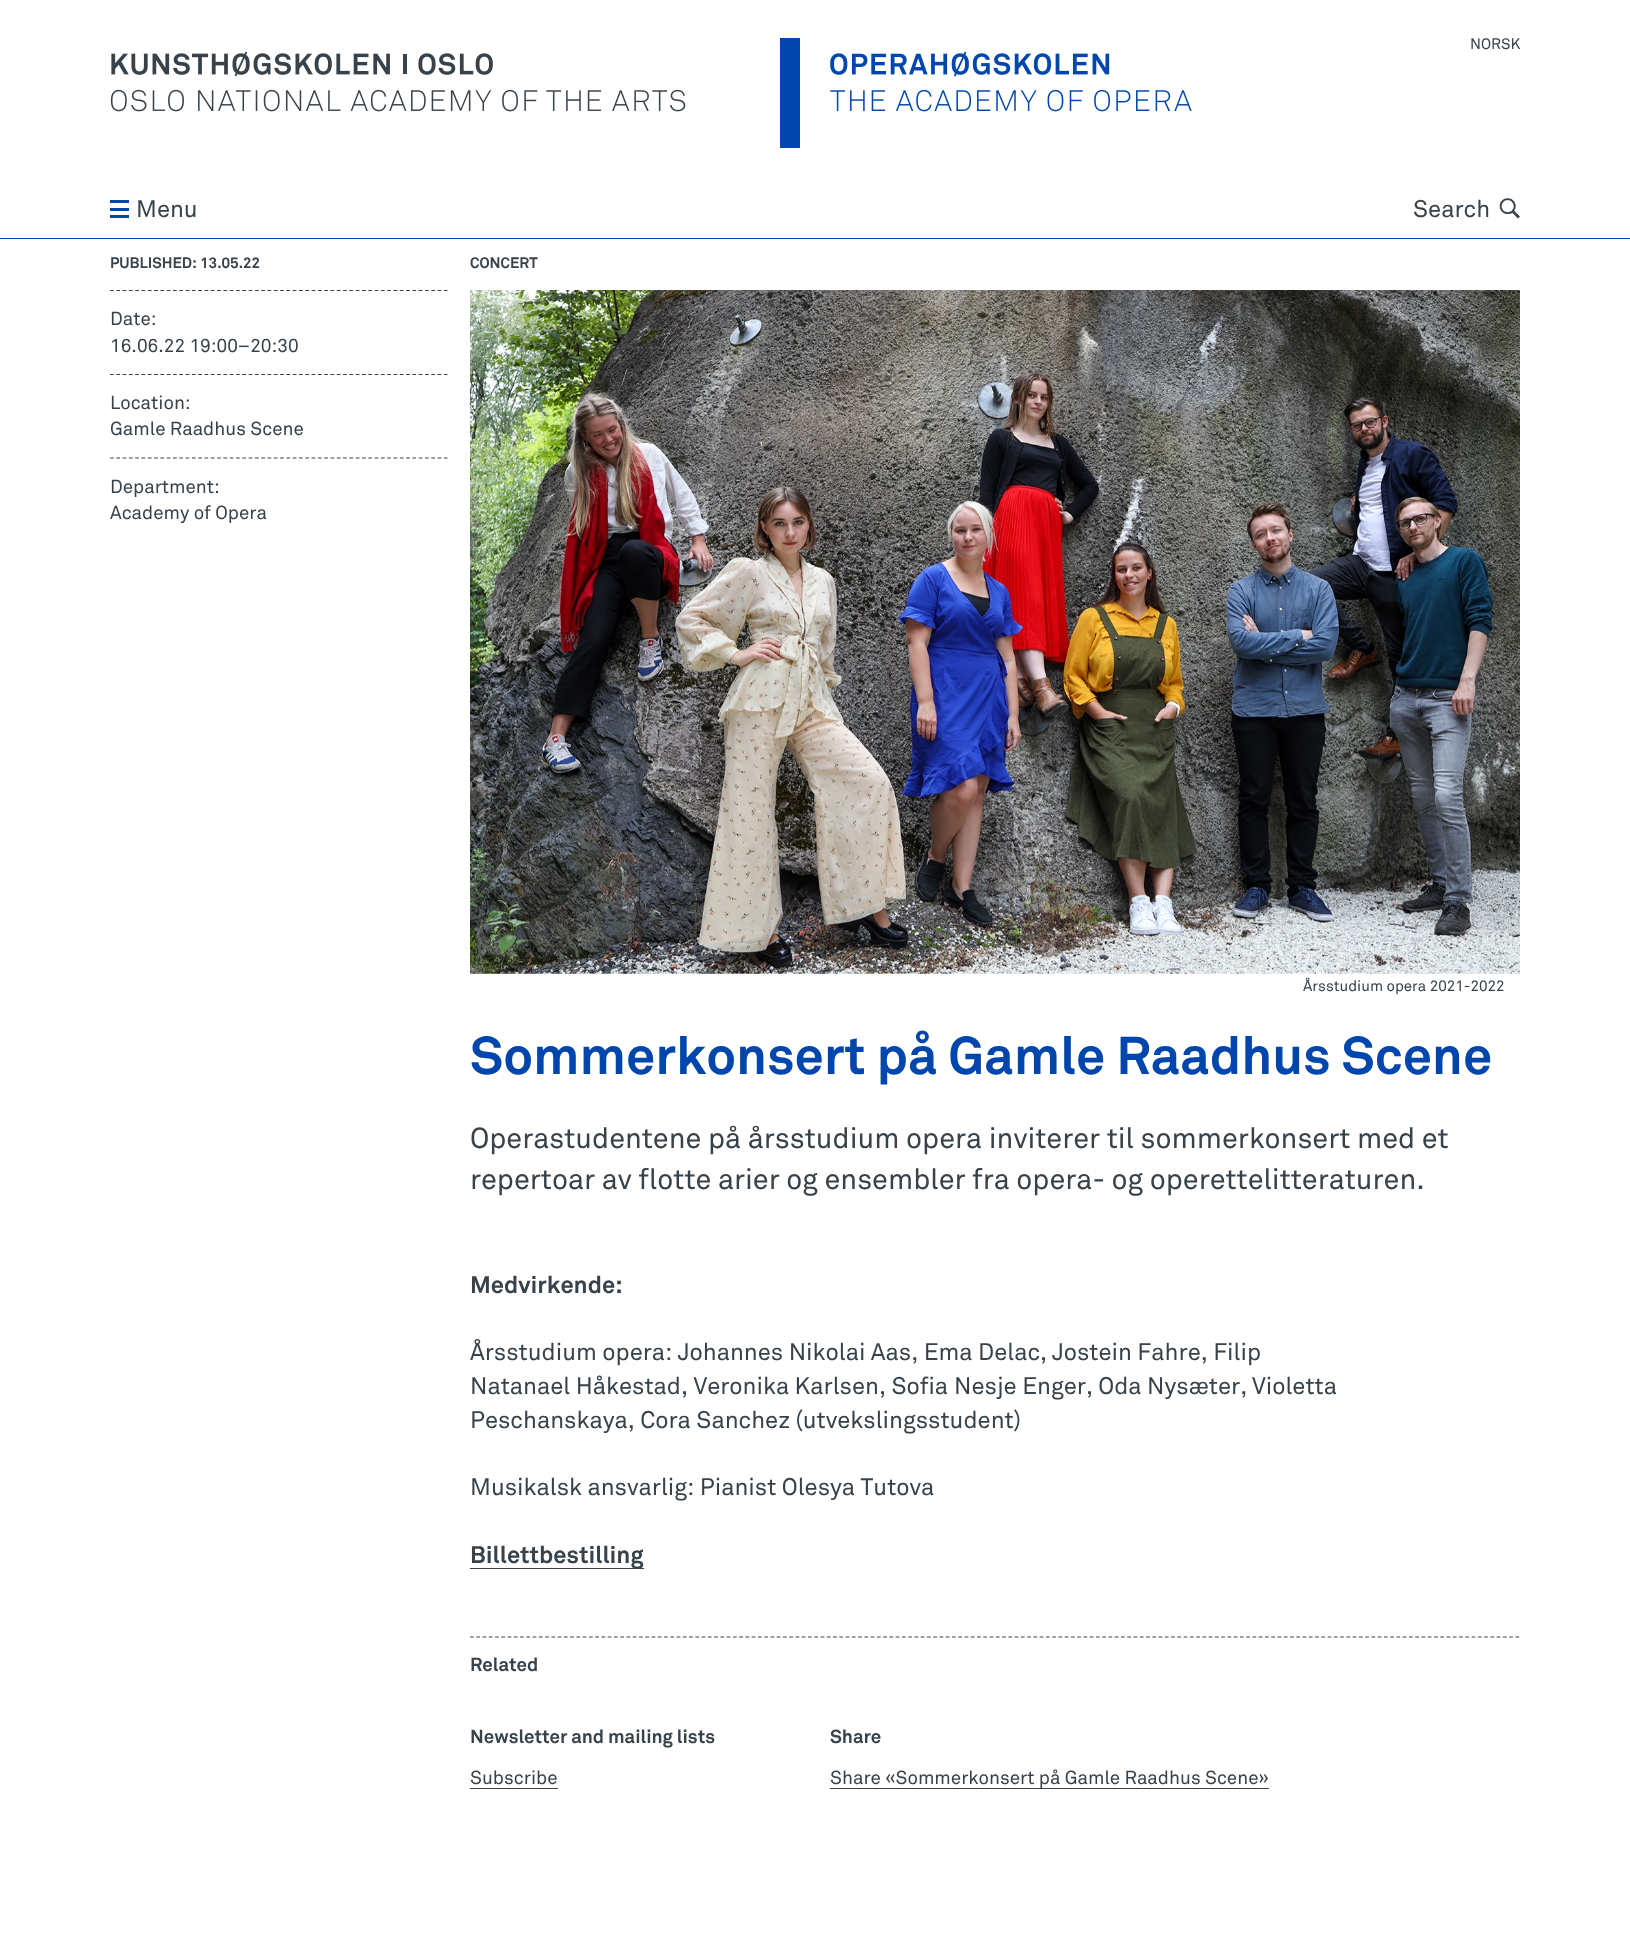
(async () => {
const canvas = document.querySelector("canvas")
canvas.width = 1630
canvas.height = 1934
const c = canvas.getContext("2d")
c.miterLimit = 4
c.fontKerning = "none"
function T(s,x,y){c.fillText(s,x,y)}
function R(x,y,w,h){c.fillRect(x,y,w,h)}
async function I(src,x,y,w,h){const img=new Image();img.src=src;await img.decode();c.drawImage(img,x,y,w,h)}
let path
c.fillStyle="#fff"
R(0,0,1630,1934)
await I("1.png",110,38,690,110)
await I("2.png",830,51,362,61)
c.font="15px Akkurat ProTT"
c.fillStyle="#37424a"
T("NORSK",1470,49)
c.fillStyle="#0046ad"
R(0,238,1630,1)
R(110,208,19,3)
R(110,200,19,3)
R(110,215,19,3)
c.font="23.75px Akkurat ProTT"
c.fillStyle="#37424a"
T("Menu",136,217)
T("Search",1413,217)
c.font="28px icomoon"
T("🔍",1496,220)
c.font="bold 15px Akkurat ProTT"
T("PUBLISHED: 13.05.22",110,268)
path = new Path2D("M110 290.5h337.5")
c.strokeStyle="#37424a"
c.lineWidth=1.2
c.setLineDash([3.75,2.55])
c.stroke(path)
c.font="18.75px Akkurat ProTT"
T("Date:",110,325)
T("16.06.22 19:00–20:30",110,352)
path = new Path2D("M110 374.5h337.5")
c.stroke(path)
T("Location:",110,409)
T("Gamle Raadhus Scene",110,435)
path = new Path2D("M110 458h337.5")
c.stroke(path)
T("Department:",110,493)
T("Academy of Opera",110,519)
c.font="bold 15px Akkurat ProTT"
T("CONCERT",470,268)
await I("3.png",470,290,1050,684)
c.font="15px Akkurat ProTT"
T("Årsstudium opera 2021-2022",1303,991)
c.font="bold 52.5px Akkurat ProTT"
c.fillStyle="#0046ad"
T("Sommerkonsert på Gamle Raadhus Scene",470,1074)
c.font="28.75px Akkurat ProTT"
c.fillStyle="#37424a"
T("Operastudentene på årsstudium opera inviterer til sommerkonsert med et",470,1148)
T("repertoar av flotte arier og ensembler fra opera- og operettelitteraturen.",470,1189)
c.font="bold 23.75px Akkurat ProTT"
T("Medvirkende:",470,1293)
c.font="23.75px Akkurat ProTT"
T("Årsstudium opera: Johannes Nikolai Aas, Ema Delac,",470,1360)
T("Jostein Fahre, Filip",1052,1360)
T("Natanael Håkestad, Veronika Karlsen, Sofia",470,1394)
T("Nesje Enger, Oda Nysæter,",954,1394)
T("Violetta",1252,1394)
T("Peschanskaya, Cora Sanchez (utvekslingsstudent)",470,1428)
T("Musikalsk ansvarlig: Pianist Olesya Tutova",470,1495)
R(470,1568,174,1)
c.font="bold 23.75px Akkurat ProTT"
T("Billettbestilling",470,1563)
path = new Path2D("M470 1637h1050")
c.setLineDash([3.75,2.51])
c.stroke(path)
c.font="bold 18.75px Akkurat ProTT"
T("Related",470,1671)
T("Newsletter and mailing lists",470,1743)
c.font="18.75px Akkurat ProTT"
T("Subscribe",470,1784)
R(470,1788,88,1)
c.font="bold 18.75px Akkurat ProTT"
T("Share",830,1743)
R(830,1788,439,1)
c.font="18.75px Akkurat ProTT"
T("Share «Sommerkonsert på Gamle Raadhus Scene»",830,1784)
})()
